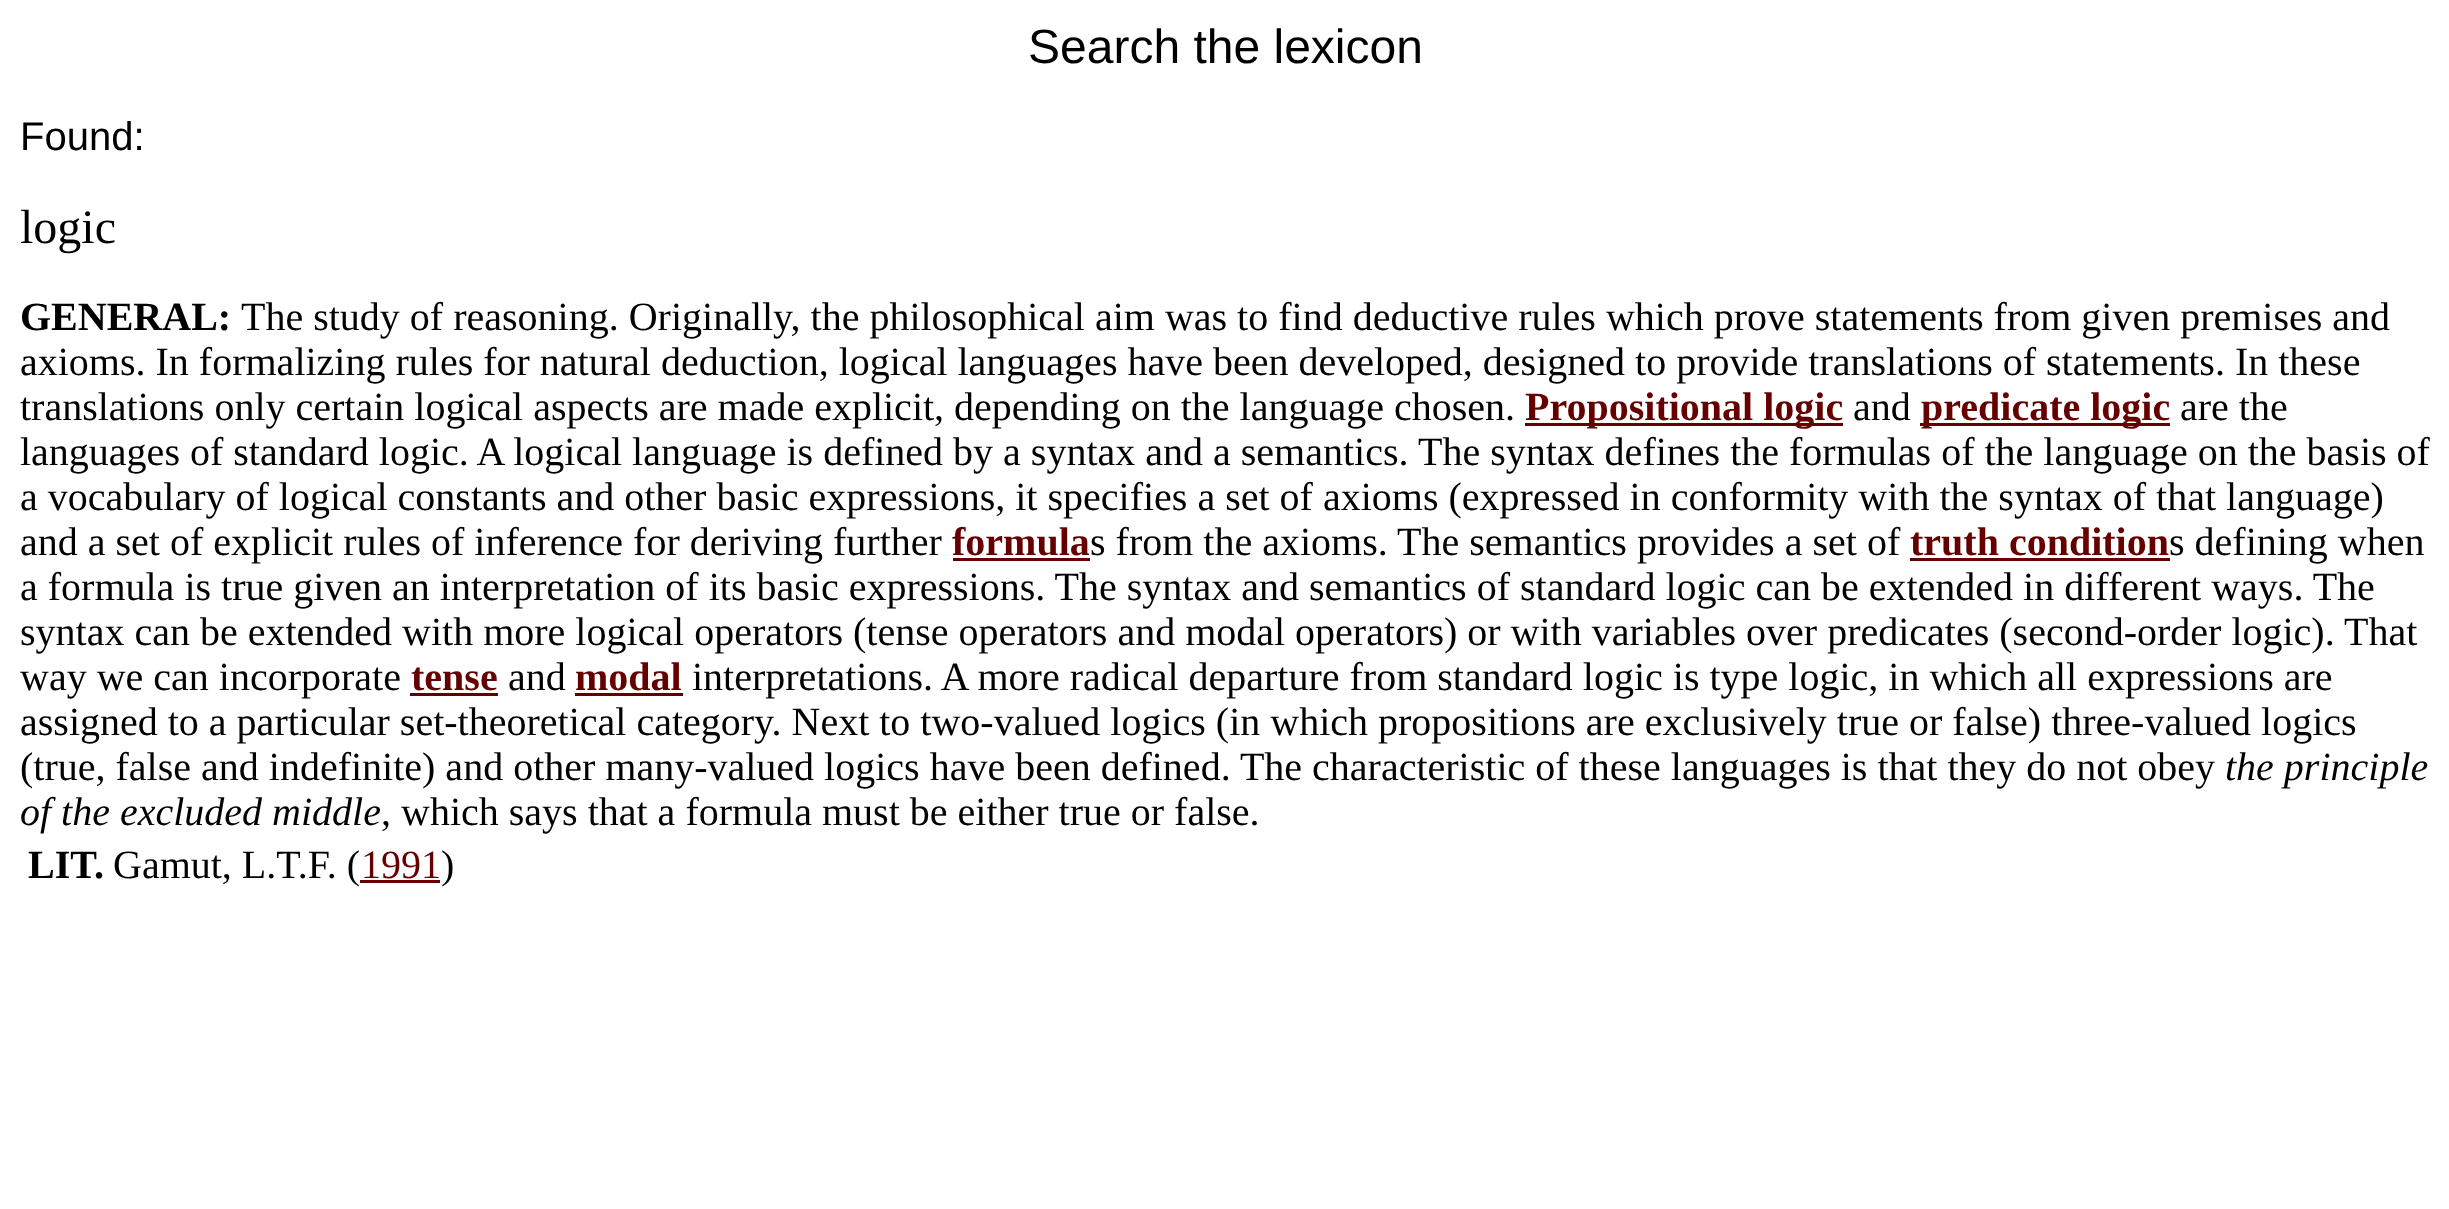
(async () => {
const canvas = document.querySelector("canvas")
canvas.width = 2449
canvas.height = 1209
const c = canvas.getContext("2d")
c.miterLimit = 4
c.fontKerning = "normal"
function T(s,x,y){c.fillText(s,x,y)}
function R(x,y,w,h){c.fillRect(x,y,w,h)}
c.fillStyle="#fff"
R(0,0,2449,1209)
c.font="48px Liberation Sans"
c.fillStyle="#000"
T("Search the lexicon",1028,63)
c.font="40px Liberation Sans"
T("Found:",20,150)
c.font="48px Liberation Serif"
T("logic",20,243)
c.font="bold 40px Liberation Serif"
T("GENERAL:",20,330)
c.font="40px Liberation Serif"
T("The study of reasoning. Originally, the philosophical aim was to find deductive rules which prove statements from given premises and",241,330)
T("axioms. In formalizing rules for natural deduction, logical languages have been developed, designed to provide translations of statements. In these",20,375)
T("translations only certain logical aspects are made explicit, depending on the language chosen.",20,420)
c.fillStyle="#600"
R(1525,423,318,3)
c.font="bold 40px Liberation Serif"
T("Propositional logic",1525,420)
c.font="40px Liberation Serif"
c.fillStyle="#000"
T("and",1853,420)
c.fillStyle="#600"
R(1920,423,250,3)
c.font="bold 40px Liberation Serif"
T("predicate logic",1921,420)
c.font="40px Liberation Serif"
c.fillStyle="#000"
T("are the",2180,420)
T("languages of standard logic. A logical language is defined by a syntax and a semantics.",20,465)
T("The syntax defines the formulas of the language on the basis of",1418,465)
T("a vocabulary of logical constants and other basic expressions, it specifies a set of axioms (expressed in conformity with the syntax of that language)",20,510)
T("and a set of explicit rules of inference for deriving further",20,555)
c.font="bold 40px Liberation Serif"
c.fillStyle="#600"
T("formula",952,555)
R(953,558,137,3)
c.font="40px Liberation Serif"
c.fillStyle="#000"
T("s from the axioms. The semantics provides a set of",1090,555)
c.font="bold 40px Liberation Serif"
c.fillStyle="#600"
T("truth condition",1910,555)
R(1910,558,260,3)
c.font="40px Liberation Serif"
c.fillStyle="#000"
T("s defining when",2169,555)
T("a formula is true given an interpretation of its basic expressions. The syntax and semantics of standard logic can be extended in different ways. The",20,600)
T("syntax can be extended with more logical operators (tense operators and modal operators) or with variables over predicates (second-order logic). That",20,645)
T("way we can incorporate",20,690)
c.font="bold 40px Liberation Serif"
c.fillStyle="#600"
T("tense",411,690)
R(410,693,88,3)
c.font="40px Liberation Serif"
c.fillStyle="#000"
T("and",508,690)
c.font="bold 40px Liberation Serif"
c.fillStyle="#600"
T("modal",575,690)
R(575,693,108,3)
c.font="40px Liberation Serif"
c.fillStyle="#000"
T("interpretations. A more radical departure from standard logic is type logic, in which all expressions are",692,690)
T("assigned to a particular set-theoretical category. Next to two-valued logics (in which propositions are exclusively true or false) three-valued logics",20,735)
T("(true, false and indefinite) and other many-valued logics have been defined. The characteristic of these languages is that they do not obey",20,780)
c.font="italic 40px Liberation Serif"
T("the principle",2225,780)
T("of the excluded middle",20,825)
c.font="40px Liberation Serif"
T(", which says that a formula must be either true or false.",381,825)
c.font="bold 40px Liberation Serif"
T("LIT.",28,878)
c.font="40px Liberation Serif"
T("Gamut, L.T.F. (",113,878)
c.fillStyle="#600"
T("1991",361,878)
R(360,880,80,3)
c.fillStyle="#000"
T(")",441,878)
})()
